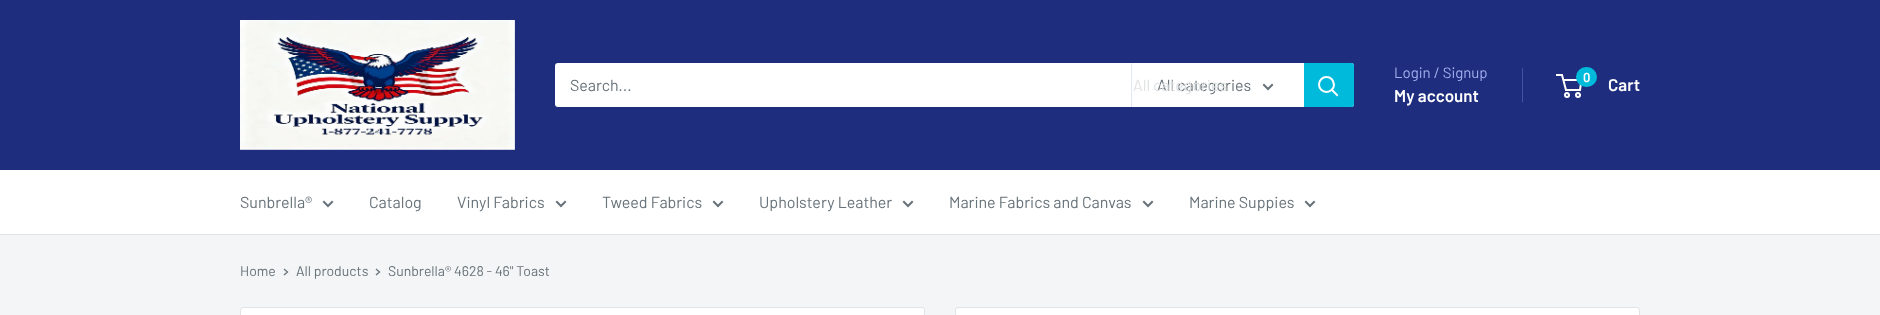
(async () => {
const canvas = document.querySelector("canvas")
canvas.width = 1880
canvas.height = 315
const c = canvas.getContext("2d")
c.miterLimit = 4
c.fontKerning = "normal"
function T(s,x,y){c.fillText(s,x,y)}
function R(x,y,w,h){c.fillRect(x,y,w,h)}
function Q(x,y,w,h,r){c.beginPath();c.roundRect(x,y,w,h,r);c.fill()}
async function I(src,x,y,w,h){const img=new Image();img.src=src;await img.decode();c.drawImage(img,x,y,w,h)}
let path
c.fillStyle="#f3f5f6"
R(0,0,1880,315)
c.fillStyle="#1e2d7d"
R(0,0,1880,170)
await I("1.png",240,20,275,130)
c.fillStyle="#fff"
Q(555,63,799,44,3)
c.font="16px Barlow"
c.fillStyle="#677279"
T("Search...",570,91)
c.fillStyle="#e3e7fa"
R(1131,63,1,44)
c.fillStyle="#677279"
T("All categories",1157,91)
c.fillStyle="#e0e2e3"
T("All categories",1133,91)
path = new Path2D("M1272 85l-4 4l-4-4")
c.strokeStyle="#677279"
c.lineWidth=2
c.lineCap="square"
c.stroke(path)
c.fillStyle="#00badb"
c.beginPath()
c.roundRect(1304,63,50,44,[0,3,3,0])
c.fill()
path = new Path2D("M1337 95l-5-5")
c.strokeStyle="#fff"
c.stroke(path)
c.beginPath()
c.arc(1326.5,84.5,7.5,0,7)
c.stroke()
c.font="15px Barlow"
c.fillStyle="#a3afef"
T("Login / Signup",1394,78)
c.fillStyle="#46549f"
R(1522,68,1,34)
c.font="600 17px Barlow"
c.fillStyle="#fff"
T("My account",1394,102)
c.beginPath()
c.arc(1567,95,2,0,7)
c.stroke()
c.beginPath()
c.arc(1578,95,2,0,7)
c.stroke()
path = new Path2D("M1563.5 80h18l-1.5 10h-14l-4-15h-6")
c.lineCap="butt"
c.stroke(path)
c.fillStyle="#00badb"
Q(1576,67,21,20,10)
c.font="600 13px Barlow"
c.fillStyle="#fff"
T("0",1583,82)
c.font="600 17px Barlow"
T("Cart",1608,91)
R(0,170,1880,64)
c.fillStyle="#e1e3e4"
R(0,234,1880,1)
c.font="16px Barlow"
c.fillStyle="#677279"
T("Sunbrella®",240,208)
path = new Path2D("M332 202l-4 4l-4-4")
c.strokeStyle="#677279"
c.lineCap="square"
c.stroke(path)
T("Catalog",369,208)
T("Vinyl Fabrics",457,208)
path = new Path2D("M565 202l-4 4l-4-4")
c.stroke(path)
T("Tweed Fabrics",602,208)
path = new Path2D("M722 202l-4 4l-4-4")
c.stroke(path)
T("Upholstery Leather",759,208)
path = new Path2D("M912 202l-4 4l-4-4")
c.stroke(path)
T("Marine Fabrics and Canvas",949,208)
path = new Path2D("M1152 202l-4 4l-4-4")
c.stroke(path)
T("Marine Suppies",1189,208)
path = new Path2D("M1314 202l-4 4l-4-4")
c.stroke(path)
c.font="14px Barlow"
T("Home",240,276)
path = new Path2D("M284.5 269.5l3 2.5l-3 2.5")
c.lineWidth=1.3
c.stroke(path)
T("All products",296,276)
path = new Path2D("M376.5 269.5l3 2.5l-3 2.5")
c.stroke(path)
T("Sunbrella® 4628 - 46\" Toast",388,276)
c.fillStyle="#fff"
c.beginPath()
c.roundRect(240.5,307.5,684,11,2.5)
c.fill()
c.strokeStyle="#e1e3e4"
c.lineWidth=1
c.stroke()
c.beginPath()
c.roundRect(955.5,307.5,684,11,2.5)
c.fill()
c.stroke()
})()
